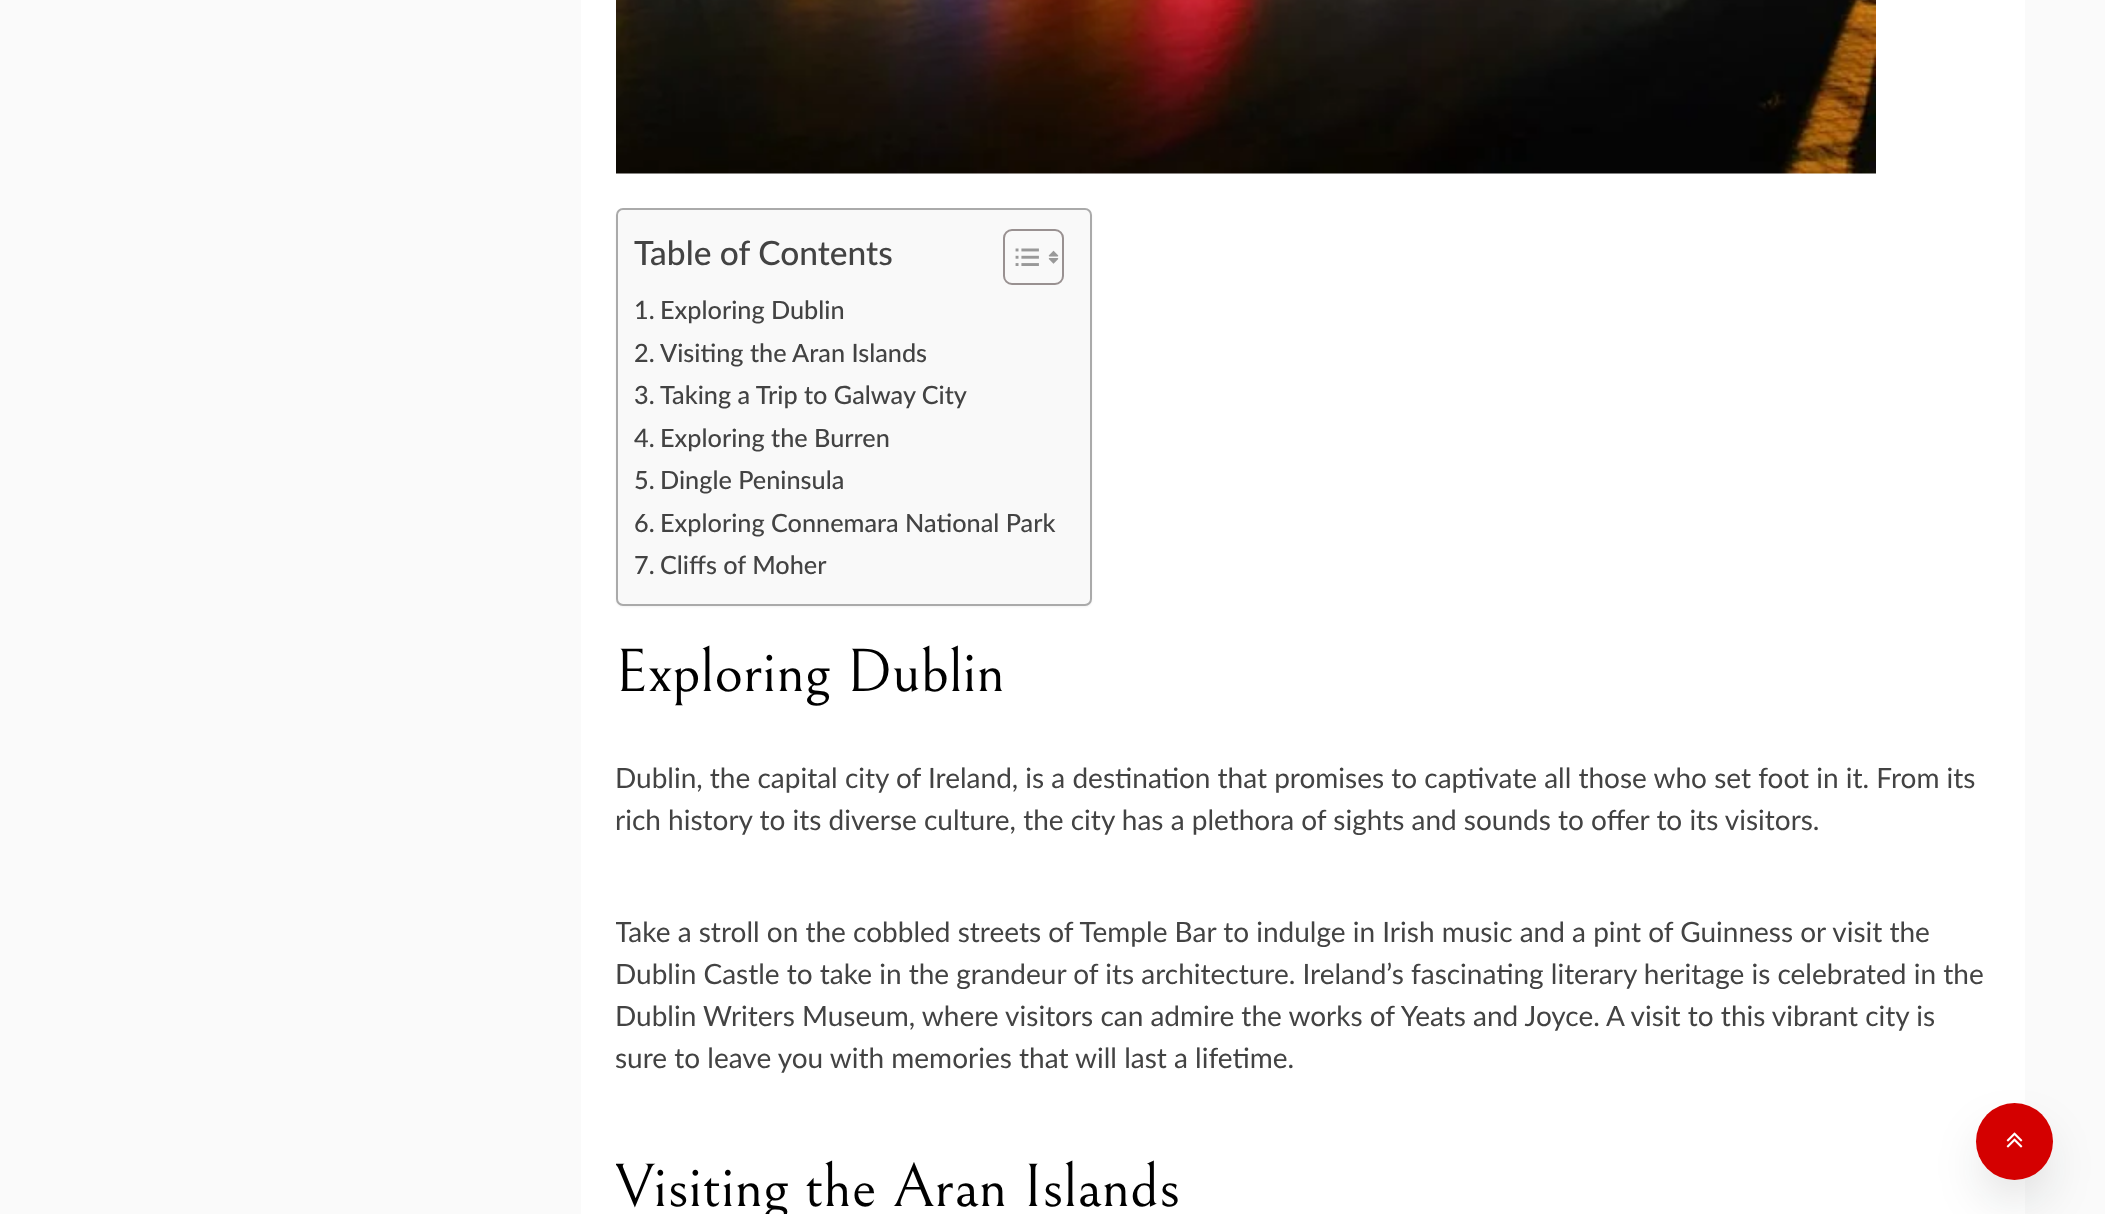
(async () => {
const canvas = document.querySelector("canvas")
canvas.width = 2105
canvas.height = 1214
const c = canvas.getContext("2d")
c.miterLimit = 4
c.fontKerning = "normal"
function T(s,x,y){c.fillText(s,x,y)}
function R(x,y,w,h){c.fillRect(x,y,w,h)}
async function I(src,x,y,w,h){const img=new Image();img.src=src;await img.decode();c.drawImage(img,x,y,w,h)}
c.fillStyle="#fafafa"
R(0,0,2105,1214)
c.fillStyle="#fff"
R(581,0,1444,1214)
await I("1.png",616,0,1260,174)
c.fillStyle="#0000000d"
c.filter="blur(1px)"
c.beginPath()
c.roundRect(616,210,476,397,7)
c.fill()
c.filter="none"
c.fillStyle="#f9f9f9"
c.beginPath()
c.roundRect(617,209,474,396,6)
c.fill()
c.strokeStyle="#aaa"
c.lineWidth=2
c.stroke()
c.font="500 33.5px Lato"
c.fillStyle="#434343"
T("Table of Contents",634,265)
c.beginPath()
c.roundRect(1004,230,59,54,8)
c.strokeStyle="#999191"
c.stroke()
await I("2.png",1015,248,24,18)
await I("3.png",1048,250,11,14)
c.font="500 25.25px Lato"
T("1.",634,319)
T("Exploring Dublin",660,319)
T("2.",634,362)
T("Visiting the Aran Islands",660,362)
T("3.",634,404)
T("Taking a Trip to Galway City",660,404)
T("4.",634,447)
T("Exploring the Burren",660,447)
T("5.",634,489)
T("Dingle Peninsula",660,489)
T("6.",634,532)
T("Exploring Connemara National Park",660,532)
T("7.",634,574)
T("Cliffs of Moher",660,574)
c.font="61.5px Bellefair"
c.fillStyle="#000"
T("Exploring Dublin",615,691)
c.font="28px Lato"
c.fillStyle="#434343"
T("Dublin, the capital city of Ireland, is a destination that promises to captivate all those who set foot in it. From its",615,788)
T("rich history to its diverse culture, the city has a plethora of sights and sounds to offer to its visitors.",615,830)
c.save()
c.beginPath()
c.rect(616,0,1374,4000)
c.clip()
T("Take a stroll on the cobbled streets of Temple Bar to indulge in Irish music and a pint of Guinness or visit the",615,942)
c.restore()
T("Dublin Castle to take in the grandeur of its architecture. Ireland’s fascinating literary heritage is celebrated in the",615,984)
T("Dublin Writers Museum, where visitors can admire the works of Yeats and Joyce. A visit to this vibrant city is",615,1026)
T("sure to leave you with memories that will last a lifetime.",615,1068)
c.save()
c.beginPath()
c.rect(616,0,1374,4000)
c.clip()
c.font="61.5px Bellefair"
c.fillStyle="#000"
T("Visiting the Aran Islands",615,1206)
c.restore()
c.fillStyle="#0e111426"
c.filter="blur(24.5px)"
c.beginPath()
c.roundRect(1983,1134,63,63,31.5)
c.fill()
c.filter="none"
c.fillStyle="#d40000"
c.beginPath()
c.arc(2014.5,1141.5,38.5,0,7)
c.fill()
await I("4.png",2006,1132,17,16)
})()
